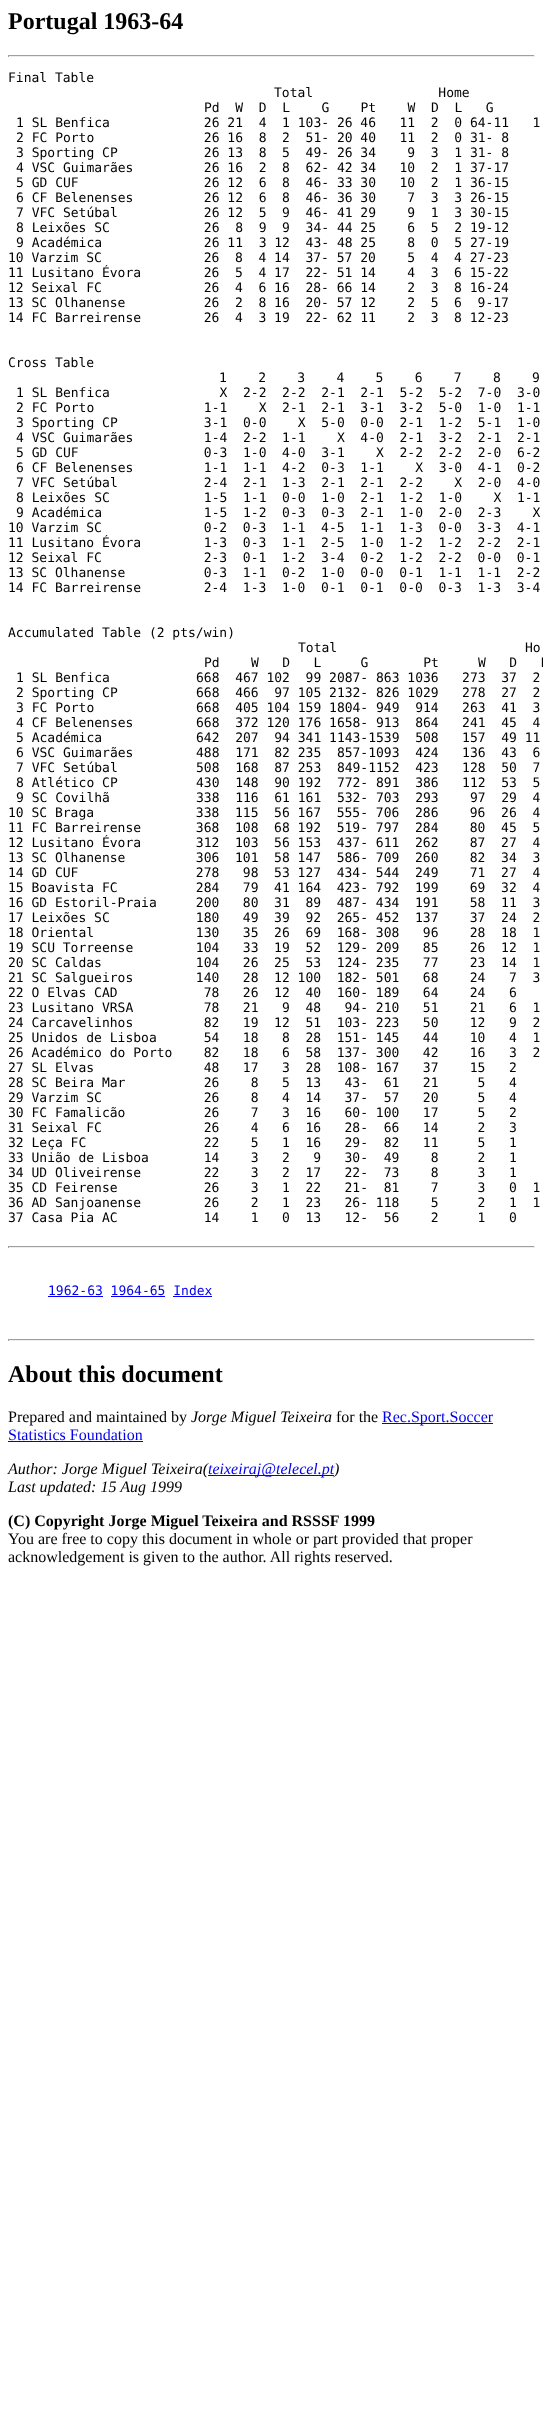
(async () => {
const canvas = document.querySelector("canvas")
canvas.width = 543
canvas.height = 2425
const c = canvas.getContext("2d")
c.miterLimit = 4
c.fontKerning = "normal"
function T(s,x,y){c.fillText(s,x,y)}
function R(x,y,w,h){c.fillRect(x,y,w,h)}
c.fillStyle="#fff"
R(0,0,543,2425)
c.font="bold 24px Liberation Serif"
c.fillStyle="#000"
T("Portugal 1963-64",8,29)
c.fillStyle="#9f9f9f"
R(8,55,527,1)
c.fillStyle="#eee"
R(534,55,1,2)
R(8,56,527,1)
c.fillStyle="#9f9f9f"
R(8,55,1,2)
c.font="13px DejaVu Sans Mono"
c.fillStyle="#000"
T("Final Table",8,82)
T("Total                Home",274,97)
T("Pd  W  D  L    G    Pt    W  D  L   G",204,112)
T("1 SL Benfica            26 21  4  1 103- 26 46   11  2  0 64-11   1",16,127)
T("2 FC Porto              26 16  8  2  51- 20 40   11  2  0 31- 8",16,142)
T("3 Sporting CP           26 13  8  5  49- 26 34    9  3  1 31- 8",16,157)
T("4 VSC Guimarães         26 16  2  8  62- 42 34   10  2  1 37-17",16,172)
T("5 GD CUF                26 12  6  8  46- 33 30   10  2  1 36-15",16,187)
T("6 CF Belenenses         26 12  6  8  46- 36 30    7  3  3 26-15",16,202)
T("7 VFC Setúbal           26 12  5  9  46- 41 29    9  1  3 30-15",16,217)
T("8 Leixões SC            26  8  9  9  34- 44 25    6  5  2 19-12",16,232)
T("9 Académica             26 11  3 12  43- 48 25    8  0  5 27-19",16,247)
T("10 Varzim SC             26  8  4 14  37- 57 20    5  4  4 27-23",8,262)
T("11 Lusitano Évora        26  5  4 17  22- 51 14    4  3  6 15-22",8,277)
T("12 Seixal FC             26  4  6 16  28- 66 14    2  3  8 16-24",8,292)
T("13 SC Olhanense          26  2  8 16  20- 57 12    2  5  6  9-17",8,307)
T("14 FC Barreirense        26  4  3 19  22- 62 11    2  3  8 12-23",8,322)
T("Cross Table",8,367)
T("1    2    3    4    5    6    7    8    9",219,382)
T("1 SL Benfica              X  2-2  2-2  2-1  2-1  5-2  5-2  7-0  3-0",16,397)
T("2 FC Porto              1-1    X  2-1  2-1  3-1  3-2  5-0  1-0  1-1",16,412)
T("3 Sporting CP           3-1  0-0    X  5-0  0-0  2-1  1-2  5-1  1-0",16,427)
T("4 VSC Guimarães         1-4  2-2  1-1    X  4-0  2-1  3-2  2-1  2-1",16,442)
T("5 GD CUF                0-3  1-0  4-0  3-1    X  2-2  2-2  2-0  6-2",16,457)
T("6 CF Belenenses         1-1  1-1  4-2  0-3  1-1    X  3-0  4-1  0-2",16,472)
T("7 VFC Setúbal           2-4  2-1  1-3  2-1  2-1  2-2    X  2-0  4-0",16,487)
T("8 Leixões SC            1-5  1-1  0-0  1-0  2-1  1-2  1-0    X  1-1",16,502)
T("9 Académica             1-5  1-2  0-3  0-3  2-1  1-0  2-0  2-3    X",16,517)
T("10 Varzim SC             0-2  0-3  1-1  4-5  1-1  1-3  0-0  3-3  4-1",8,532)
T("11 Lusitano Évora        1-3  0-3  1-1  2-5  1-0  1-2  1-2  2-2  2-1",8,547)
T("12 Seixal FC             2-3  0-1  1-2  3-4  0-2  1-2  2-2  0-0  0-1",8,562)
T("13 SC Olhanense          0-3  1-1  0-2  1-0  0-0  0-1  1-1  1-1  2-2",8,577)
T("14 FC Barreirense        2-4  1-3  1-0  0-1  0-1  0-0  0-3  1-3  3-4",8,592)
T("Accumulated Table (2 pts/win)",8,637)
T("Total                        Ho",298,652)
T("Pd    W   D   L     G       Pt     W   D   L",204,667)
T("1 SL Benfica           668  467 102  99 2087- 863 1036   273  37  2",16,682)
T("2 Sporting CP          668  466  97 105 2132- 826 1029   278  27  2",16,697)
T("3 FC Porto             668  405 104 159 1804- 949  914   263  41  3",16,712)
T("4 CF Belenenses        668  372 120 176 1658- 913  864   241  45  4",16,727)
T("5 Académica            642  207  94 341 1143-1539  508   157  49 11",16,742)
T("6 VSC Guimarães        488  171  82 235  857-1093  424   136  43  6",16,757)
T("7 VFC Setúbal          508  168  87 253  849-1152  423   128  50  7",16,772)
T("8 Atlético CP          430  148  90 192  772- 891  386   112  53  5",16,787)
T("9 SC Covilhã           338  116  61 161  532- 703  293    97  29  4",16,802)
T("10 SC Braga             338  115  56 167  555- 706  286    96  26  4",8,817)
T("11 FC Barreirense       368  108  68 192  519- 797  284    80  45  5",8,832)
T("12 Lusitano Évora       312  103  56 153  437- 611  262    87  27  4",8,847)
T("13 SC Olhanense         306  101  58 147  586- 709  260    82  34  3",8,862)
T("14 GD CUF               278   98  53 127  434- 544  249    71  27  4",8,877)
T("15 Boavista FC          284   79  41 164  423- 792  199    69  32  4",8,892)
T("16 GD Estoril-Praia     200   80  31  89  487- 434  191    58  11  3",8,907)
T("17 Leixões SC           180   49  39  92  265- 452  137    37  24  2",8,922)
T("18 Oriental             130   35  26  69  168- 308   96    28  18  1",8,937)
T("19 SCU Torreense        104   33  19  52  129- 209   85    26  12  1",8,952)
T("20 SC Caldas            104   26  25  53  124- 235   77    23  14  1",8,967)
T("21 SC Salgueiros        140   28  12 100  182- 501   68    24   7  3",8,982)
T("22 O Elvas CAD           78   26  12  40  160- 189   64    24   6",8,997)
T("23 Lusitano VRSA         78   21   9  48   94- 210   51    21   6  1",8,1012)
T("24 Carcavelinhos         82   19  12  51  103- 223   50    12   9  2",8,1027)
T("25 Unidos de Lisboa      54   18   8  28  151- 145   44    10   4  1",8,1042)
T("26 Académico do Porto    82   18   6  58  137- 300   42    16   3  2",8,1057)
T("27 SL Elvas              48   17   3  28  108- 167   37    15   2",8,1072)
T("28 SC Beira Mar          26    8   5  13   43-  61   21     5   4",8,1087)
T("29 Varzim SC             26    8   4  14   37-  57   20     5   4",8,1102)
T("30 FC Famalicão          26    7   3  16   60- 100   17     5   2",8,1117)
T("31 Seixal FC             26    4   6  16   28-  66   14     2   3",8,1132)
T("32 Leça FC               22    5   1  16   29-  82   11     5   1",8,1147)
T("33 União de Lisboa       14    3   2   9   30-  49    8     2   1",8,1162)
T("34 UD Oliveirense        22    3   2  17   22-  73    8     3   1",8,1177)
T("35 CD Feirense           26    3   1  22   21-  81    7     3   0  1",8,1192)
T("36 AD Sanjoanense        26    2   1  23   26- 118    5     2   1  1",8,1207)
T("37 Casa Pia AC           14    1   0  13   12-  56    2     1   0",8,1222)
c.fillStyle="#9f9f9f"
R(8,1246,527,1)
c.fillStyle="#eee"
R(534,1246,1,2)
R(8,1247,527,1)
c.fillStyle="#9f9f9f"
R(8,1246,1,2)
c.fillStyle="#00e"
T("1962-63 1964-65 Index",48,1295)
R(48,1296,55,1)
R(111,1296,54,1)
R(173,1296,39,1)
c.fillStyle="#9f9f9f"
R(8,1339,527,1)
c.fillStyle="#eee"
R(534,1339,1,2)
R(8,1340,527,1)
c.fillStyle="#9f9f9f"
R(8,1339,1,2)
c.font="bold 24px Liberation Serif"
c.fillStyle="#000"
T("About this document",8,1382)
c.font="16px Liberation Serif"
T("Prepared and maintained by",8,1422)
c.font="italic 16px Liberation Serif"
T("Jorge Miguel Teixeira",191,1422)
c.font="16px Liberation Serif"
T("for the",336,1422)
c.fillStyle="#00e"
R(382,1423,111,1)
T("Rec.Sport.Soccer",382,1422)
T("Statistics Foundation",8,1440)
R(8,1441,135,1)
c.font="italic 16px Liberation Serif"
c.fillStyle="#000"
T("Author: Jorge Miguel Teixeira(",8,1474)
c.fillStyle="#00e"
R(208,1475,126,1)
T("teixeiraj@telecel.pt",208,1474)
c.fillStyle="#000"
T(")",334,1474)
T("Last updated: 15 Aug 1999",8,1492)
c.font="bold 16px Liberation Serif"
T("(C) Copyright Jorge Miguel Teixeira and RSSSF 1999",8,1526)
c.font="16px Liberation Serif"
T("You are free to copy this document in whole or part provided that proper",8,1544)
T("acknowledgement is given to the author. All rights reserved.",8,1562)
})()
